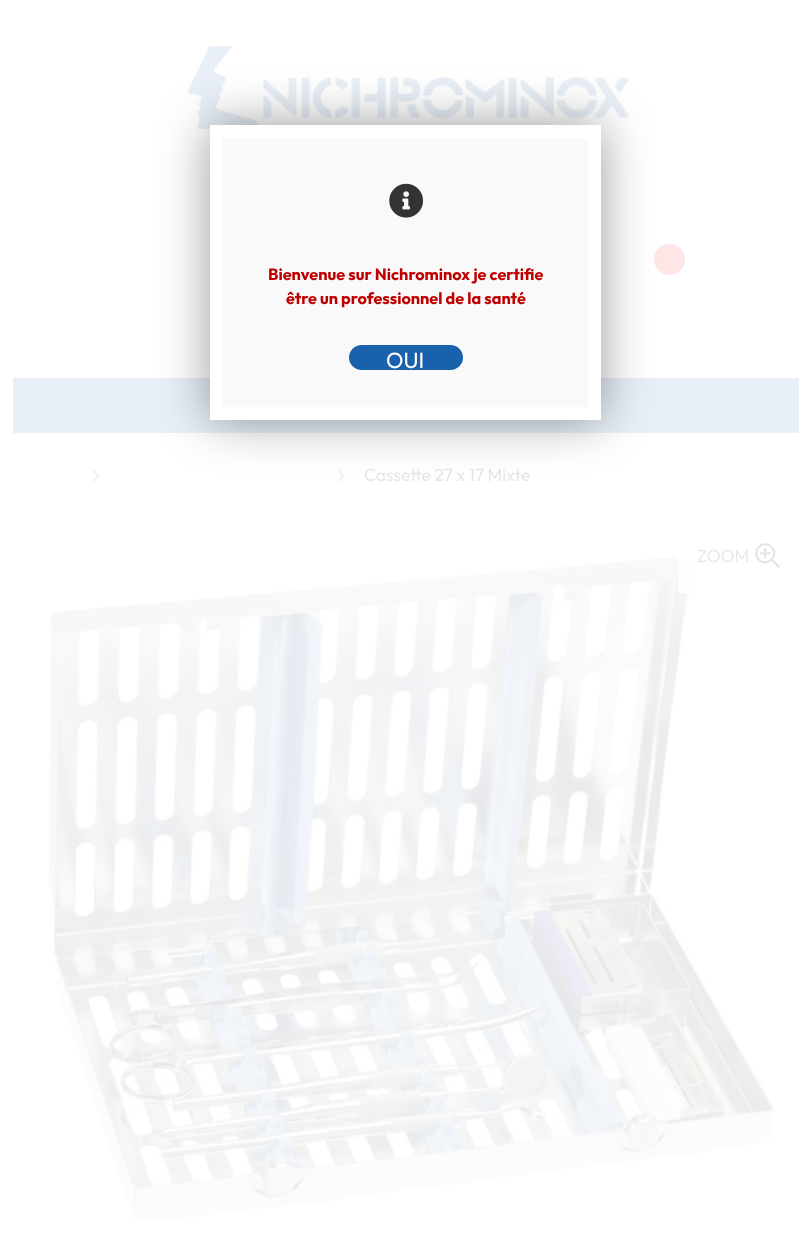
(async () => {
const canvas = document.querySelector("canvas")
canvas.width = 811
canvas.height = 1244
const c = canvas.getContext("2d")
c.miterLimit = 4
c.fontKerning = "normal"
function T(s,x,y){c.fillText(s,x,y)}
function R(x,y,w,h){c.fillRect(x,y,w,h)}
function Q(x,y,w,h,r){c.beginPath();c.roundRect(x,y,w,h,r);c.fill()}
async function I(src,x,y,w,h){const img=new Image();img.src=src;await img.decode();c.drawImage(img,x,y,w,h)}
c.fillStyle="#fff"
R(0,0,811,1244)
await I("2.png",187,46,442,85)
c.fillStyle="#ffe6e6"
c.beginPath()
c.arc(669.5,259.5,15.5,0,7)
c.fill()
c.fillStyle="#e8eff7"
R(13,378,786,55)
await I("3.png",337,469,8,13)
c.fillStyle="#00000066"
c.filter="blur(25px)"
c.beginPath()
c.rect(210,125,391,295)
c.fill()
c.filter="none"
c.fillStyle="#f9f9f9"
c.beginPath()
c.rect(216.5,131.5,378,282)
c.fill()
c.strokeStyle="#fff"
c.lineWidth=13
c.stroke()
await I("1.png",389,183,34,35)
c.font="bold 16.25px Outfit"
c.fillStyle="#bf0000"
T("Bienvenue sur Nichrominox je certifie",268,280)
T("être un professionnel de la santé",286,304)
c.fillStyle="#1961ac"
Q(349,345,114,25,12.5)
c.font="22px Outfit"
c.fillStyle="#fff"
T("OUI",386,368)
await I("3.png",92,469,8,13)
c.font="17.5px Outfit"
c.fillStyle="#e6e6e6"
T("Cassette 27 x 17 Mixte",364,481)
await I("5.png",45,552,734,671)
c.fillStyle="#fdfeff"
R(678,559,12,34)
c.font="300 17.5px Outfit"
c.fillStyle="#e6e6e6"
T("ZOOM",697,562)
await I("4.png",755,543,25,26)
})()
